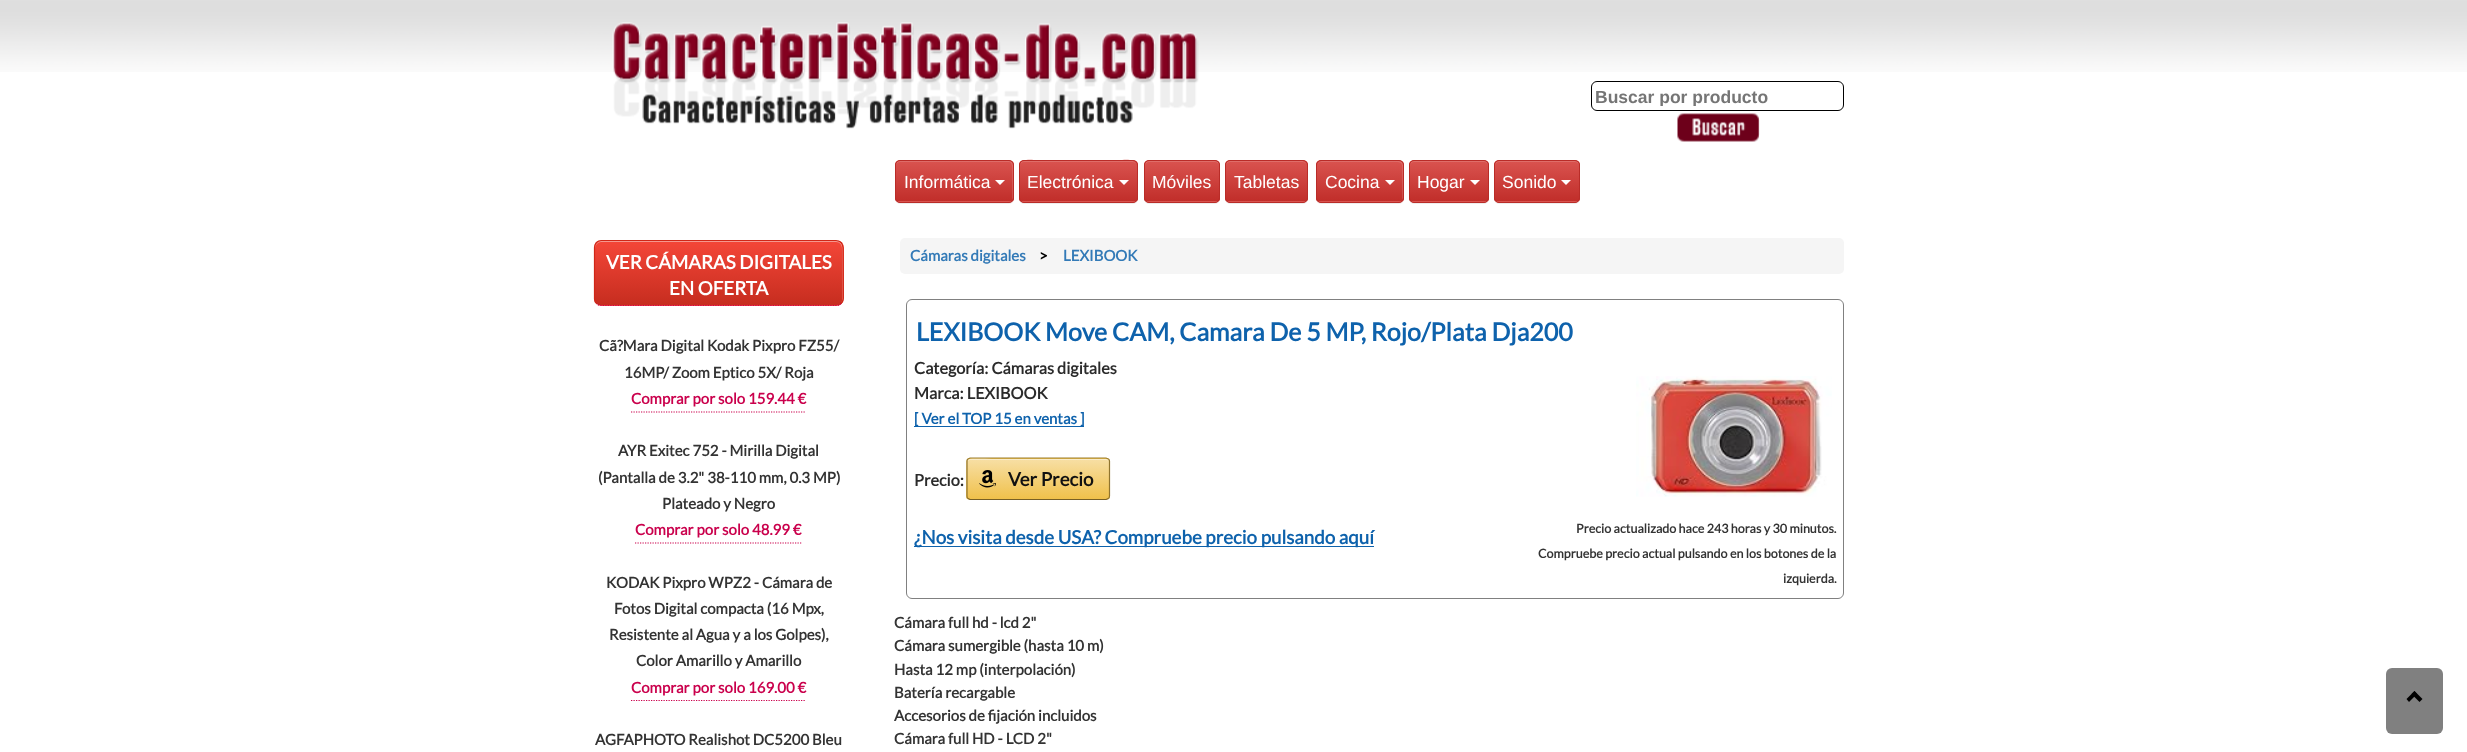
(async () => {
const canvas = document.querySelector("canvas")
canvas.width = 2467
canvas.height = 752
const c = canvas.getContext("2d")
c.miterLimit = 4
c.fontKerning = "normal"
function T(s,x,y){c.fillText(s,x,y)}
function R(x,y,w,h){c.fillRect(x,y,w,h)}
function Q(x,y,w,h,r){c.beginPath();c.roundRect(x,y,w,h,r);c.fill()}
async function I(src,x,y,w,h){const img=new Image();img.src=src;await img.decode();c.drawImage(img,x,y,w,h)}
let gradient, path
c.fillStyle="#fff"
R(0,0,2467,752)
await I("1.png",0,0,2467,72)
await I("2.png",594,0,1280,72)
await I("3.png",612,22,587,107)
c.beginPath()
c.roundRect(1591.5,81.5,252,29,5.5)
c.strokeStyle="#000"
c.stroke()
c.save()
c.beginPath()
c.rect(1595,86,245,20)
c.clip()
c.font="bold 17.5px Liberation Sans"
c.fillStyle="#757575"
T("Buscar por producto",1595,103)
c.restore()
await I("4.png",1677,113,83,29)
c.fillStyle="#00000012"
c.filter="blur(0.5px)"
c.beginPath()
c.roundRect(895,161,119,43,5)
c.fill()
c.filter="none"
c.fillStyle="#d9534f"
Q(895,160,119,43,5)
c.save()
c.beginPath()
c.roundRect(895,160,119,43,5)
c.clip()
gradient = c.createLinearGradient(954,161,954,201)
gradient.addColorStop(0,"#d9534f")
gradient.addColorStop(1,"#c12e2a")
c.fillStyle = gradient
R(895,161,119,40)
c.restore()
c.fillStyle="#ffffff26"
path = new Path2D("M900 162h109c4 0 3 8 3 10v28c1-1 1-2 1-3v-32c0-2-2-4-4-4h-109c-2 0-4 2-4 4v1c0-2 2-4 4-4z")
c.fill(path)
c.beginPath()
c.roundRect(895.5,160.5,118,42,4.5)
c.strokeStyle="#b92c28"
c.stroke()
c.font="17.5px Liberation Sans"
c.fillStyle="#fff"
T("Informática",904,188)
path = new Path2D("M995 180h10l-5 5z")
c.fill(path)
c.fillStyle="#00000012"
c.filter="blur(0.5px)"
c.beginPath()
c.roundRect(1019,161,119,43,5)
c.fill()
c.filter="none"
c.fillStyle="#d9534f"
Q(1019,160,119,43,5)
c.save()
c.beginPath()
c.roundRect(1019,160,119,43,5)
c.clip()
gradient = c.createLinearGradient(1078,161,1078,201)
gradient.addColorStop(0,"#d9534f")
gradient.addColorStop(1,"#c12e2a")
c.fillStyle = gradient
R(1019,161,119,40)
c.restore()
c.fillStyle="#df6d69"
path = new Path2D("M1024 162h108c3 0 4 2 4 4c0-10-19-5-22-5h-72c-3 0-22-5-22 5c0-2 2-4 4-4z")
c.fill(path)
c.beginPath()
c.roundRect(1019.5,160.5,118,42,4.5)
c.stroke()
c.fillStyle="#fff"
T("Electrónica",1027,188)
path = new Path2D("M1119 180h10l-5 5z")
c.fill(path)
c.fillStyle="#00000012"
c.filter="blur(0.5px)"
c.beginPath()
c.roundRect(1144,161,76,43,5)
c.fill()
c.filter="none"
c.fillStyle="#d9534f"
Q(1144,160,76,43,5)
c.save()
c.beginPath()
c.roundRect(1144,160,76,43,5)
c.clip()
gradient = c.createLinearGradient(1182,161,1182,201)
gradient.addColorStop(0,"#d9534f")
gradient.addColorStop(1,"#c12e2a")
c.fillStyle = gradient
R(1144,161,76,40)
c.restore()
c.fillStyle="#df6d69"
path = new Path2D("M1149 162h66c2 0 4 2 4 4c0-8-10-5-15-5h-44c-5 0-15-3-15 5c0-2 2-4 4-4z")
c.fill(path)
c.beginPath()
c.roundRect(1144.5,160.5,75,42,4.5)
c.stroke()
c.fillStyle="#fff"
T("Móviles",1152,188)
c.fillStyle="#00000012"
c.filter="blur(0.5px)"
c.beginPath()
c.roundRect(1225,161,83,43,5)
c.fill()
c.filter="none"
c.fillStyle="#d9534f"
Q(1225,160,83,43,5)
c.save()
c.beginPath()
c.roundRect(1225,160,83,43,5)
c.clip()
gradient = c.createLinearGradient(1266,161,1266,201)
gradient.addColorStop(0,"#d9534f")
gradient.addColorStop(1,"#c12e2a")
c.fillStyle = gradient
R(1225,161,83,40)
c.restore()
c.fillStyle="#df6d69"
path = new Path2D("M1230 162h72c3 0 4 2 4 4c0-8-11-5-16-5h-48c-5 0-16-3-16 5c0-2 2-4 4-4z")
c.fill(path)
c.beginPath()
c.roundRect(1225.5,160.5,82,42,4.5)
c.stroke()
c.fillStyle="#fff"
T("Tabletas",1234,188)
c.fillStyle="#00000012"
c.filter="blur(0.5px)"
c.beginPath()
c.roundRect(1316,161,88,43,5)
c.fill()
c.filter="none"
c.fillStyle="#d9534f"
Q(1316,160,88,43,5)
c.save()
c.beginPath()
c.roundRect(1316,160,88,43,5)
c.clip()
gradient = c.createLinearGradient(1360,161,1360,201)
gradient.addColorStop(0,"#d9534f")
gradient.addColorStop(1,"#c12e2a")
c.fillStyle = gradient
R(1316,161,88,40)
c.restore()
c.fillStyle="#ffffff26"
path = new Path2D("M1321 162h65c19 0 16-2 16 15v23c1-1 1-2 1-3v-32c0-2-2-4-4-4h-77c-2 0-4 2-4 4v1c0-2 1-4 3-4z")
c.fill(path)
c.beginPath()
c.roundRect(1316.5,160.5,87,42,4.5)
c.stroke()
c.fillStyle="#fff"
T("Cocina",1325,188)
path = new Path2D("M1385 180h10l-5 5z")
c.fill(path)
c.fillStyle="#00000012"
c.filter="blur(0.5px)"
c.beginPath()
c.roundRect(1409,161,80,43,5)
c.fill()
c.filter="none"
c.fillStyle="#d9534f"
Q(1409,160,80,43,5)
c.save()
c.beginPath()
c.roundRect(1409,160,80,43,5)
c.clip()
gradient = c.createLinearGradient(1449,161,1449,201)
gradient.addColorStop(0,"#d9534f")
gradient.addColorStop(1,"#c12e2a")
c.fillStyle = gradient
R(1409,161,80,40)
c.restore()
c.fillStyle="#df6d69"
path = new Path2D("M1414 162h70c2 0 4 2 4 4c0-8-11-5-16-5h-46c-5 0-16-3-16 5c0-2 2-4 4-4z")
c.fill(path)
c.beginPath()
c.roundRect(1409.5,160.5,79,42,4.5)
c.stroke()
c.fillStyle="#fff"
T("Hogar",1417,188)
path = new Path2D("M1470 180h10l-5 5z")
c.fill(path)
c.fillStyle="#00000012"
c.filter="blur(0.5px)"
c.beginPath()
c.roundRect(1494,161,86,43,5)
c.fill()
c.filter="none"
c.fillStyle="#d9534f"
Q(1494,160,86,43,5)
c.save()
c.beginPath()
c.roundRect(1494,160,86,43,5)
c.clip()
gradient = c.createLinearGradient(1537,161,1537,201)
gradient.addColorStop(0,"#d9534f")
gradient.addColorStop(1,"#c12e2a")
c.fillStyle = gradient
R(1494,161,86,40)
c.restore()
c.fillStyle="#df6d69"
path = new Path2D("M1499 162h76c2 0 4 2 4 4c0-8-12-5-17-5h-50c-5 0-17-3-17 5c0-2 2-4 4-4z")
c.fill(path)
c.beginPath()
c.roundRect(1494.5,160.5,85,42,4.5)
c.stroke()
c.fillStyle="#fff"
T("Sonido",1502,188)
path = new Path2D("M1561 180h10l-5 5z")
c.fill(path)
c.save()
c.beginPath()
c.roundRect(594,240,250,66,8)
c.clip()
gradient = c.createLinearGradient(719,241,719,305)
gradient.addColorStop(.05,"#f24537")
gradient.addColorStop(1,"#c62d1f")
c.fillStyle = gradient
R(594,241,250,64)
gradient = c.createLinearGradient(719,305,719,369)
gradient.addColorStop(.05,"#f24537")
gradient.addColorStop(1,"#c62d1f")
c.fillStyle = gradient
R(594,305,250,1)
c.restore()
c.fillStyle="#f5978e"
path = new Path2D("M601 242h235c4 0 6 3 6 7v51c0 1 0 2-1 3c1-1 2-2 2-4v-52c0-3-3-6-6-6h-236c-3 0-6 3-6 6v2c0-4 3-7 6-7z")
c.fill(path)
path = new Path2D("M841 303.5c-1 1.5-3 2-5 2h-235c-1.5 0-3.5-.5-4.5-2")
c.strokeStyle="#ca004c"
c.lineWidth=1.2
c.setLineDash([1.25,1.25])
c.stroke(path)
path = new Path2D("M596.5 303.5c-1.5-1-2-3-2-4.5v-51.5c0-2 .5-3.5 2-5c1-1 3-2 4.5-2h235c2 0 4 1 5 2c1.5 1.5 2 3 2 5v51.5c0 1.5-.5 3.5-2 4.5")
c.strokeStyle="#d02718"
c.setLineDash([])
c.stroke(path)
c.font="bold 18.75px Lato"
c.fillStyle="#fff"
T("VER CÁMARAS DIGITALES",606,269)
T("EN OFERTA",669,295)
c.font="bold 15px Lato"
c.fillStyle="#333"
T("Cã?Mara Digital Kodak Pixpro FZ55/",599,351)
T("16MP/ Zoom Eptico 5X/ Roja",624,378)
c.fillStyle="#ca004c"
T("Comprar por solo 159.44 €",631,404)
path = new Path2D("M631 412h175")
c.strokeStyle="#ca004c"
c.setLineDash([1.25,1.25])
c.stroke(path)
c.fillStyle="#333"
T("AYR Exitec 752 - Mirilla Digital",618,456)
T("(Pantalla de 3.2\" 38-110 mm, 0.3 MP)",598,483)
T("Plateado y Negro",662,509)
c.fillStyle="#ca004c"
T("Comprar por solo 48.99 €",635,535)
path = new Path2D("M635 543h167.5")
c.stroke(path)
c.fillStyle="#333"
T("KODAK Pixpro WPZ2 - Cámara de",606,588)
T("Fotos Digital compacta (16 Mpx,",614,614)
T("Resistente al Agua y a los Golpes),",609,640)
T("Color Amarillo y Amarillo",636,666)
c.fillStyle="#ca004c"
T("Comprar por solo 169.00 €",631,693)
path = new Path2D("M631 700.5h175")
c.stroke(path)
c.fillStyle="#333"
T("AGFAPHOTO Realishot DC5200 Bleu",595,745)
c.fillStyle="#f5f5f5"
Q(900,238,944,36,5)
c.fillStyle="#337ab7"
T("Cámaras digitales",910,261)
c.fillStyle="#000"
T(">",1039,261)
c.fillStyle="#337ab7"
T("LEXIBOOK",1063,261)
c.beginPath()
c.roundRect(906.5,299.5,937,299,5.5)
c.strokeStyle="#808080"
c.lineWidth=1
c.setLineDash([])
c.stroke()
c.font="bold 25px Lato"
c.fillStyle="#0e62ac"
T("LEXIBOOK Move CAM, Camara De 5 MP, Rojo/Plata Dja200",916,341)
c.font="bold 16.25px Lato"
c.fillStyle="#2b2b2b"
T("Categoría: Cámaras digitales",914,374)
T("Marca: LEXIBOOK",914,399)
c.fillStyle="#0e62ac"
R(914,426,170,1)
c.font="bold 15px Lato"
T("[ Ver el TOP 15 en ventas ]",914,424)
c.font="bold 16.25px Lato"
c.fillStyle="#2b2b2b"
T("Precio:",914,486)
c.save()
c.beginPath()
c.roundRect(966,458,144,42,4)
c.clip()
gradient = c.createLinearGradient(1038,419,1038,459)
gradient.addColorStop(0,"#f7dfa5")
gradient.addColorStop(1,"#f0c14b")
c.fillStyle = gradient
R(966,458,144,1)
gradient = c.createLinearGradient(1038,459,1038,499)
gradient.addColorStop(0,"#f7dfa5")
gradient.addColorStop(1,"#f0c14b")
c.fillStyle = gradient
R(966,459,144,40)
gradient = c.createLinearGradient(1038,499,1038,539)
gradient.addColorStop(0,"#f7dfa5")
gradient.addColorStop(1,"#f0c14b")
c.fillStyle = gradient
R(966,499,144,1)
c.restore()
c.fillStyle="#ffffff66"
path = new Path2D("M970 460h136c2 0 3 1 3 2l-1-2l-2-1h-113c-3 0-25-5-25 3c0-1 1-2 2-2z")
c.fill(path)
path = new Path2D("M968 459l2-1h136l2.5 1")
c.strokeStyle="#9c7e31"
c.lineWidth=1.2
c.stroke(path)
path = new Path2D("M1108.5 459c.5 .5 1 1.5 1 2v35c0 1-.5 2-1 2.5")
c.strokeStyle="#90742d"
c.stroke(path)
path = new Path2D("M1108.5 498.5l-2.5 1h-136l-2-1")
c.strokeStyle="#786025"
c.stroke(path)
path = new Path2D("M968 498.5c-1-.5-1-1.5-1-2.5v-35c0-.5 0-1.5 1-2")
c.strokeStyle="#90742d"
c.stroke(path)
await I("5.png",979,470,17,18)
c.font="bold 18.75px Lato"
c.fillStyle="#111"
T("Ver Precio",1008,486)
c.fillStyle="#0e62ac"
R(914,546,460,1)
T("¿Nos visita desde USA? Compruebe precio pulsando aquí",914,544)
await I("6.png",1636,376,196,121)
c.font="bold 12.5px Lato"
c.fillStyle="#333"
T("Precio actualizado hace 243 horas y 30 minutos.",1576,533)
T("Compruebe precio actual pulsando en los botones de la",1538,558)
T("izquierda.",1783,583)
c.font="bold 15px Lato"
T("Cámara full hd - lcd 2\"",894,628)
T("Cámara sumergible (hasta 10 m)",894,651)
T("Hasta 12 mp (interpolación)",894,675)
T("Batería recargable",894,698)
T("Accesorios de fijación incluidos",894,721)
T("Cámara full HD - LCD 2\"",894,744)
c.fillStyle="#808080"
Q(2386,668,57,66,6)
c.fillStyle="#000"
path = new Path2D("M2409 702l-2.5-3l8-8l2.5 3z")
c.fill(path)
path = new Path2D("M2419.5 702l-8-8l3-3l8 8z")
c.fill(path)
})()
